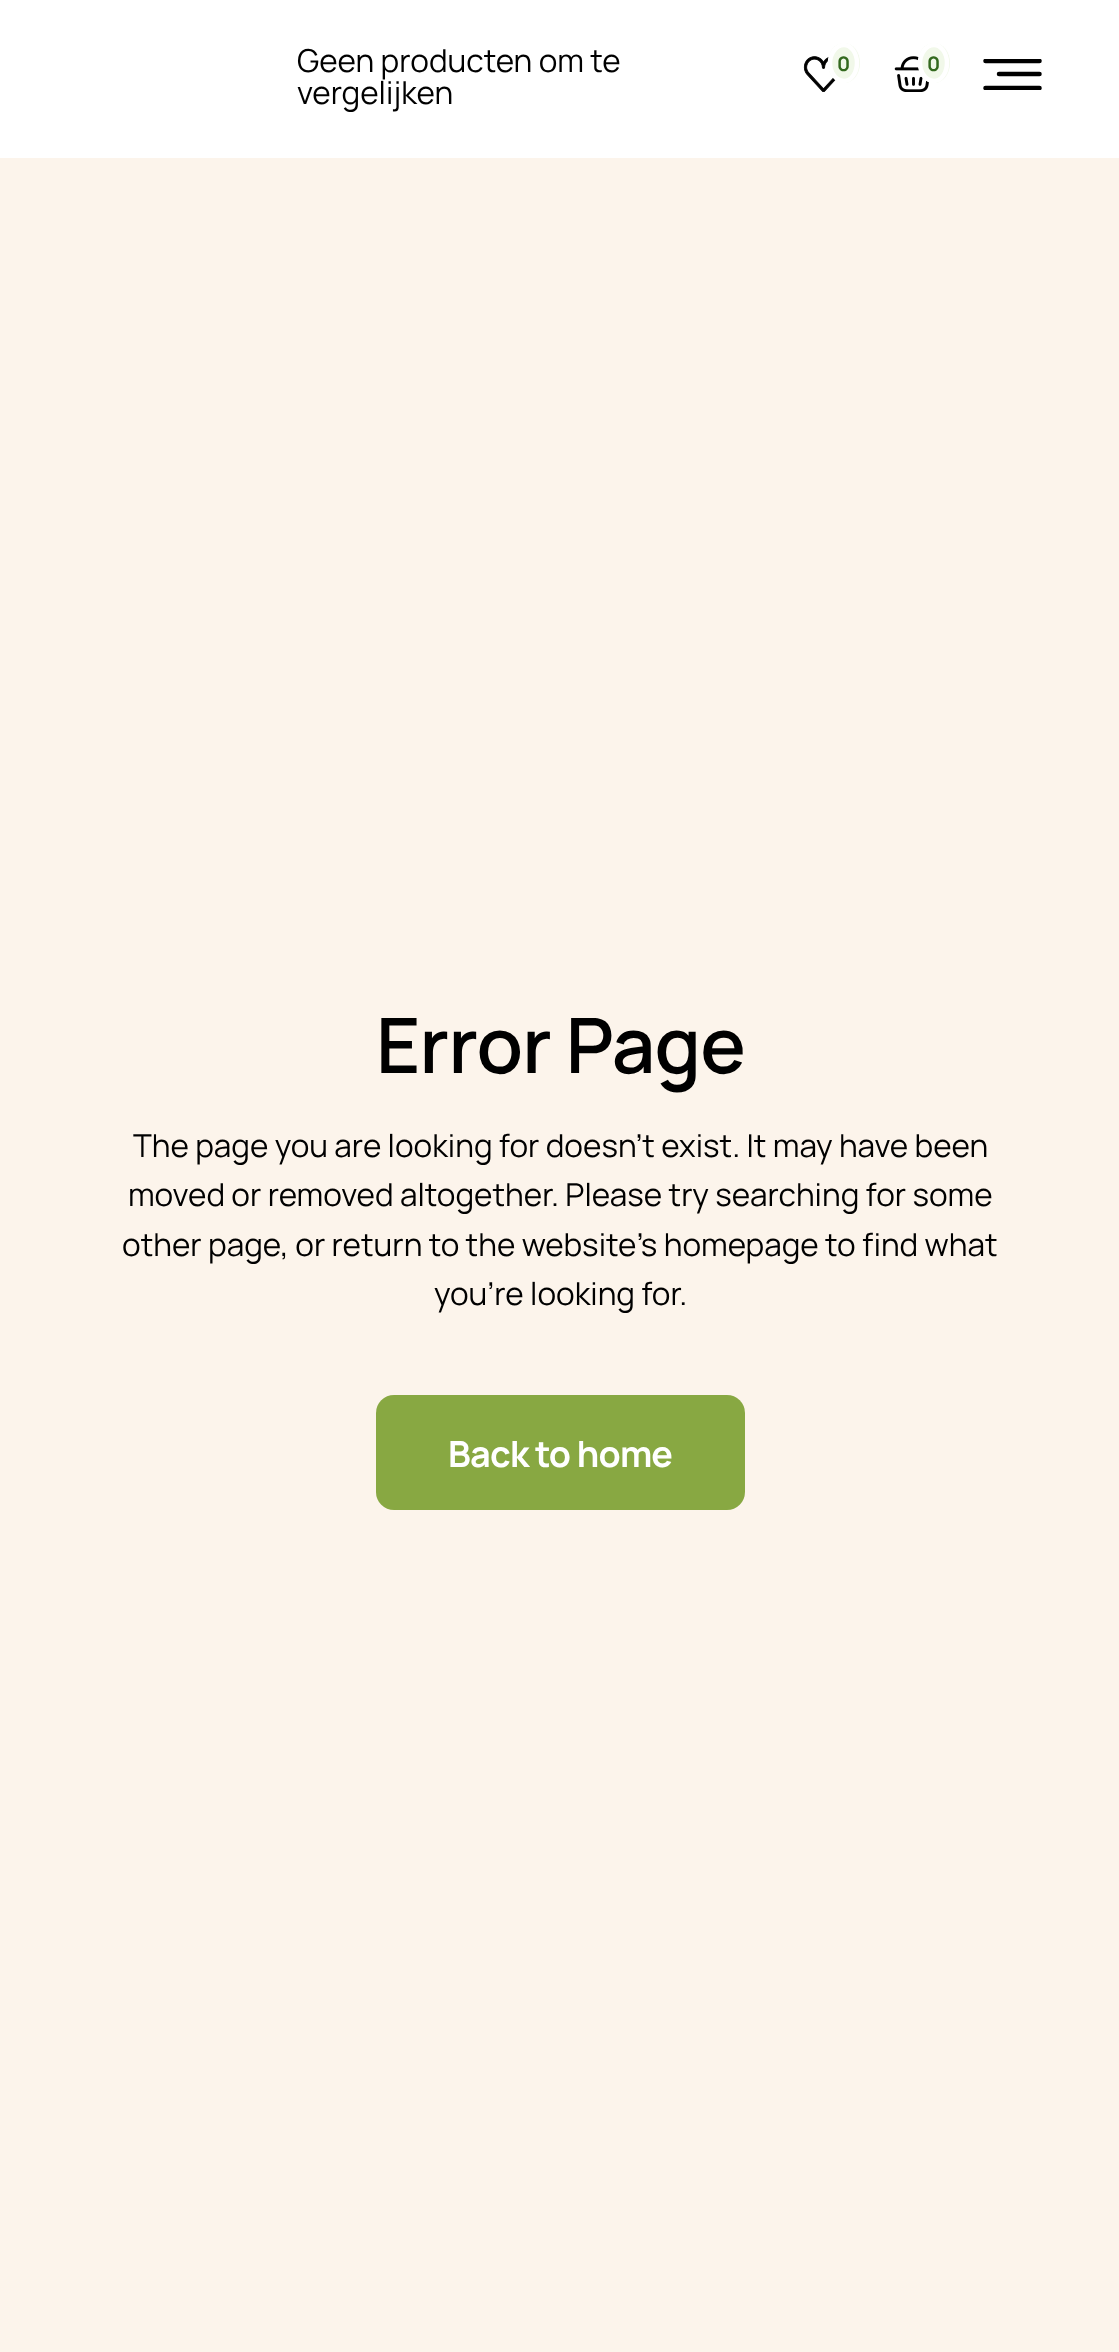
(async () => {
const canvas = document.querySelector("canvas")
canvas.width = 1119
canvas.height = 2352
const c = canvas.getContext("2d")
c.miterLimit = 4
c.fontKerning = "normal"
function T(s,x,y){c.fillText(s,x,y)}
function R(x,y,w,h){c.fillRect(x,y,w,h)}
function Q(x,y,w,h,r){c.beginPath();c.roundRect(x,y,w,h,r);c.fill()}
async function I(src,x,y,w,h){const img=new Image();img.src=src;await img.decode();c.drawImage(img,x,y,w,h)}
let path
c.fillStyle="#fff"
R(0,0,1119,2352)
c.font="31.5px Manrope"
c.fillStyle="#000"
T("Geen producten om te",297,72)
T("vergelijken",297,104)
await I("1.png",803,56,33,36)
c.fillStyle="#f1f8e9"
c.beginPath()
c.ellipse(844,63,16,20,0,0,7)
c.fill()
path = new Path2D("M844 45c7 0 13 8 13 18c0 10-6 18-13 18c-7.5 0-14-8-14-18c0-10 6.5-18 14-18z")
c.strokeStyle="#fff"
c.lineWidth=4.5
c.stroke(path)
c.font="bold 20px Manrope"
c.fillStyle="#33691e"
T("0",837,71)
await I("2.png",894,56,35,36)
c.fillStyle="#f1f8e9"
c.beginPath()
c.ellipse(934,63,16,20,0,0,7)
c.fill()
path = new Path2D("M934 45c7 0 13 8 13 18c0 10-6 18-13 18c-7.5 0-14-8-14-18c0-10 6.5-18 14-18z")
c.stroke(path)
c.fillStyle="#33691e"
T("0",927,71)
c.save()
c.beginPath()
c.rect(983,59,59,31)
c.clip()
path = new Path2D("M985.5 61h54")
c.strokeStyle="#000"
c.lineCap="round"
c.stroke(path)
c.restore()
path = new Path2D("M999 74h40.5")
c.strokeStyle="#000"
c.lineCap="round"
c.stroke(path)
c.save()
c.beginPath()
c.rect(983,59,59,31)
c.clip()
path = new Path2D("M985.5 88h54")
c.stroke(path)
c.restore()
c.fillStyle="#fcf4eb"
R(0,158,1119,2194)
c.letterSpacing="-0.75px"
c.font="600 76.5px Manrope"
c.fillStyle="#000"
T("Error Page",376,1073)
c.letterSpacing="0px"
c.font="31.5px Manrope"
T("The page you are looking for doesn't exist. It may have been",133,1157)
T("moved or removed altogether. Please try searching for some",128,1206)
T("other page, or return to the website's homepage to find what",122,1256)
T("you're looking for.",434,1305)
c.fillStyle="#88a842"
Q(376,1395,369,115,18)
c.letterSpacing="-0.75px"
c.font="bold 36px Manrope"
c.fillStyle="#fff"
T("Back to home",448,1467)
})()
